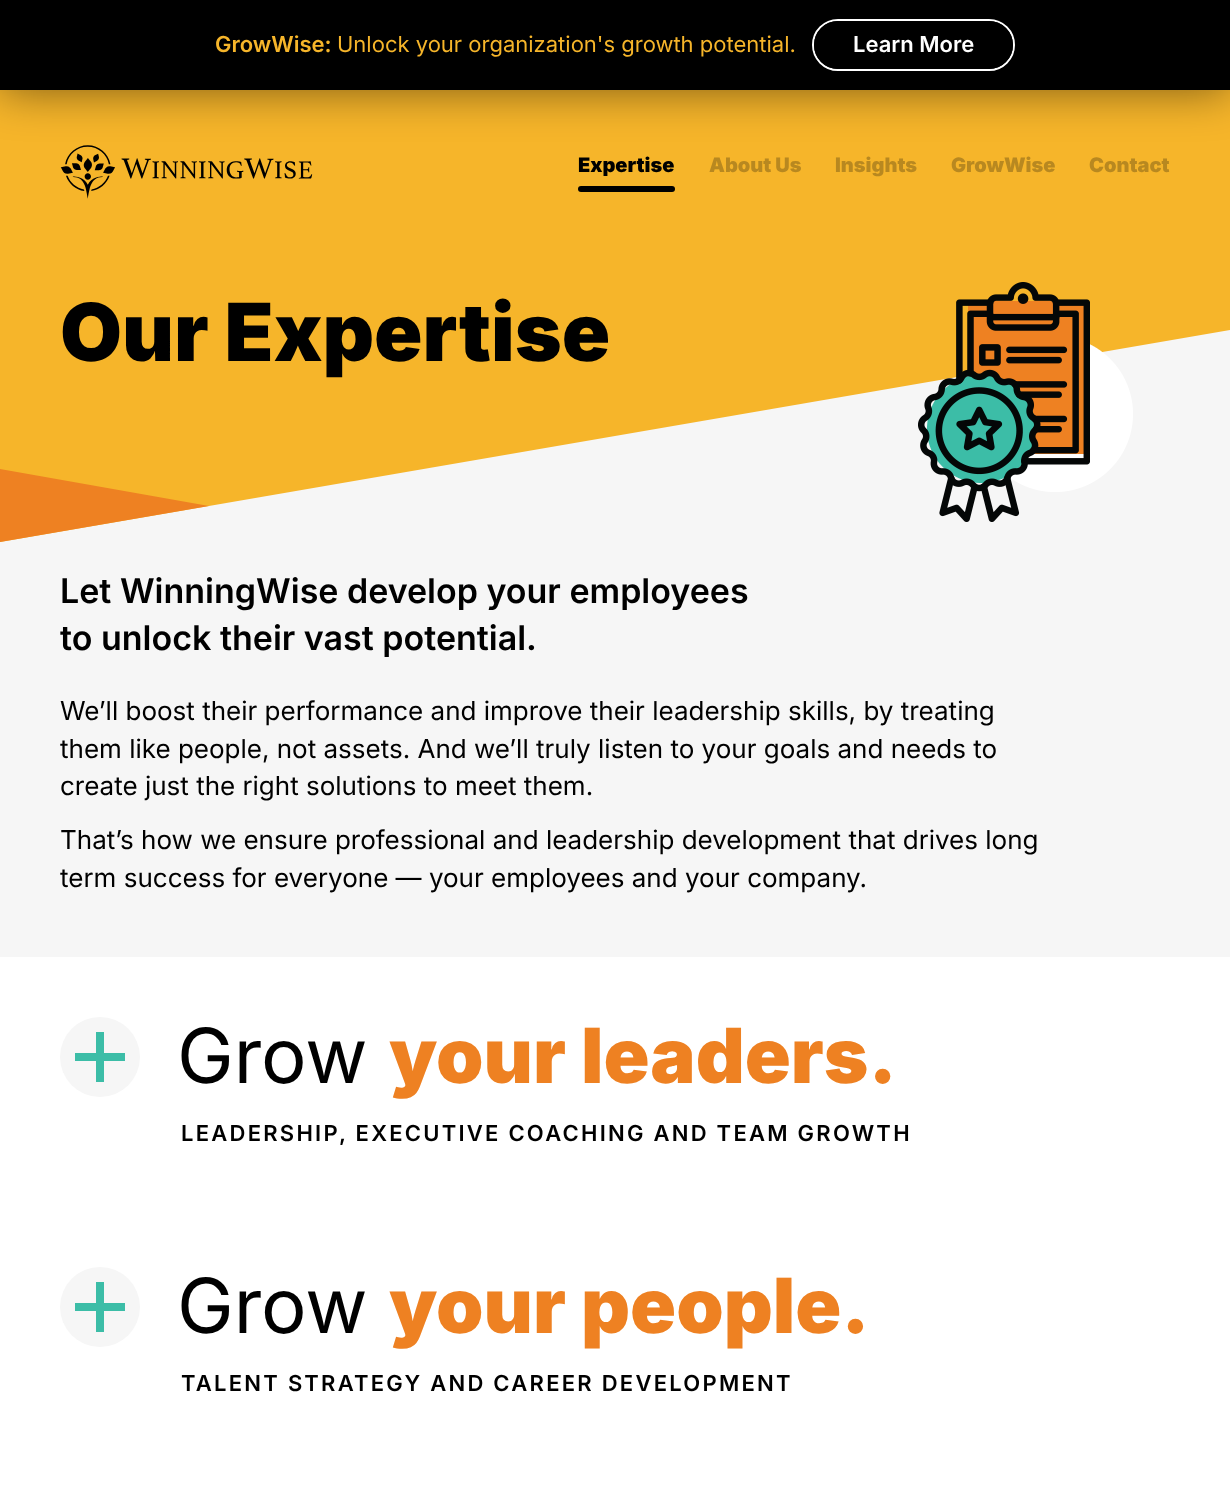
(async () => {
const canvas = document.querySelector("canvas")
canvas.width = 1230
canvas.height = 1497
const c = canvas.getContext("2d")
c.miterLimit = 4
c.fontKerning = "normal"
function T(s,x,y){c.fillText(s,x,y)}
function R(x,y,w,h){c.fillRect(x,y,w,h)}
function Q(x,y,w,h,r){c.beginPath();c.roundRect(x,y,w,h,r);c.fill()}
async function I(src,x,y,w,h){const img=new Image();img.src=src;await img.decode();c.drawImage(img,x,y,w,h)}
let path
c.fillStyle="#fff"
R(0,0,1230,1497)
c.fillStyle="#f6b52a"
R(0,90,1230,164)
c.fillStyle="#00000080"
c.filter="blur(23px)"
c.beginPath()
c.rect(0,0,1230,90)
c.fill()
c.filter="none"
c.fillStyle="#000"
R(0,0,1230,90)
c.font="600 22px Inter"
c.fillStyle="#f6b52a"
T("GrowWise:",215,52)
c.font="22px Inter"
T("Unlock your organization's growth potential.",337,52)
c.beginPath()
c.roundRect(813,20,201,50,25)
c.strokeStyle="#fff"
c.lineWidth=2
c.stroke()
c.fillStyle="#000"
Q(814,21,199,48,24)
c.font="600 22px Inter"
c.fillStyle="#fff"
T("Learn More",853,52)
await I("1.png",60,145,253,54)
c.font="900 20px Inter"
c.fillStyle="#000"
T("Expertise",578,172)
Q(578,186,97,6,3)
c.fillStyle="#b88820"
T("About Us",709,172)
T("Insights",835,172)
T("GrowWise",951,172)
T("Contact",1089,172)
c.fillStyle="#f6f6f6"
R(0,330,1230,627)
c.fillStyle="#f6b52a"
path = new Path2D("M0 254v288l1230-212v-76z")
c.fill(path)
c.font="900 80px Inter"
c.fillStyle="#000"
T("Our Expertise",60,361)
await I("2.png",918,282,215,240)
c.fillStyle="#ee8122"
path = new Path2D("M0 542l209-36l-209-37z")
c.fill(path)
c.font="600 34px Inter"
c.fillStyle="#000"
T("Let WinningWise develop your employees",60,603)
T("to unlock their vast potential.",60,650)
c.font="26px Inter"
T("We’ll boost their performance and improve their leadership skills, by treating",60,720)
T("them like people, not assets. And we’ll truly listen to your goals and needs to",60,758)
T("create just the right solutions to meet them.",60,795)
T("That’s how we ensure professional and leadership development that drives long",60,849)
T("term success for everyone — your employees and your company.",60,887)
c.fillStyle="#f6f6f6"
c.beginPath()
c.arc(100,1057,40,0,7)
c.fill()
c.fillStyle="#3cbda7"
R(75,1053,50,8)
R(96,1032,8,50)
c.font="76px Inter"
c.fillStyle="#000"
T("Grow",177,1083)
c.font="900 76px Inter"
c.fillStyle="#ee8122"
T("your leaders.",389,1083)
c.letterSpacing="2.25px"
c.font="600 22px Inter"
c.fillStyle="#000"
T("LEADERSHIP, EXECUTIVE COACHING AND TEAM GROWTH",181,1141)
c.fillStyle="#f6f6f6"
c.beginPath()
c.arc(100,1307,40,0,7)
c.fill()
c.fillStyle="#3cbda7"
R(75,1303,50,8)
R(96,1282,8,50)
c.letterSpacing="0px"
c.font="76px Inter"
c.fillStyle="#000"
T("Grow",177,1333)
c.font="900 76px Inter"
c.fillStyle="#ee8122"
T("your people.",389,1333)
c.letterSpacing="2.25px"
c.font="600 22px Inter"
c.fillStyle="#000"
T("TALENT STRATEGY AND CAREER DEVELOPMENT",181,1391)
})()
